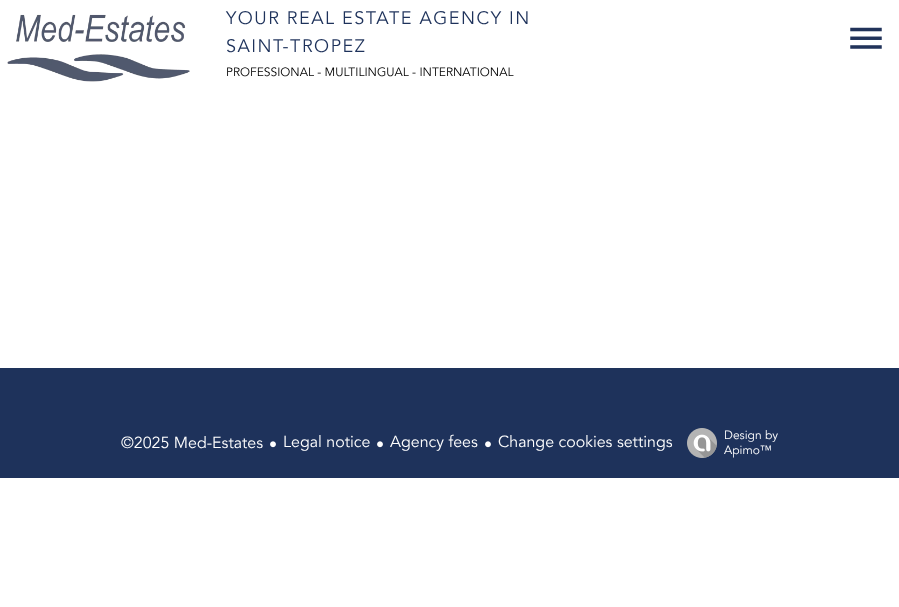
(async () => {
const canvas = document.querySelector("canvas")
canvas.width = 899
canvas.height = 607
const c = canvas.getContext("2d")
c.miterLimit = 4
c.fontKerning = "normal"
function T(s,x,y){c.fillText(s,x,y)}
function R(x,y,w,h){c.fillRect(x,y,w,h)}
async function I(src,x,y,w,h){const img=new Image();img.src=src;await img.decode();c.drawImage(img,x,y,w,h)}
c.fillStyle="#fff"
R(0,0,899,607)
await I("1.png",7,14,183,68)
c.letterSpacing="1.5px"
c.font="18px Avenir"
c.fillStyle="#1e325b"
T("YOUR REAL ESTATE AGENCY IN",226,24)
T("SAINT-TROPEZ",226,52)
c.letterSpacing="0px"
c.font="12px Avenir"
c.fillStyle="#000"
T("PROFESSIONAL - MULTILINGUAL - INTERNATIONAL",226,76)
await I("2.png",850,27,32,22)
c.fillStyle="#1e325b"
R(0,368,899,110)
c.font="16px Avenir"
c.fillStyle="#fff"
T("©2025 Med-Estates",121,448)
await I("3.png",270,441,6,7)
T("Legal notice",283,447)
await I("3.png",377,441,6,7)
T("Agency fees",390,447)
await I("3.png",485,441,6,7)
T("Change cookies settings",498,447)
await I("4.png",687,428,30,30)
c.font="12px Avenir"
T("Design by",724,439)
T("Apimo™",724,454)
})()
